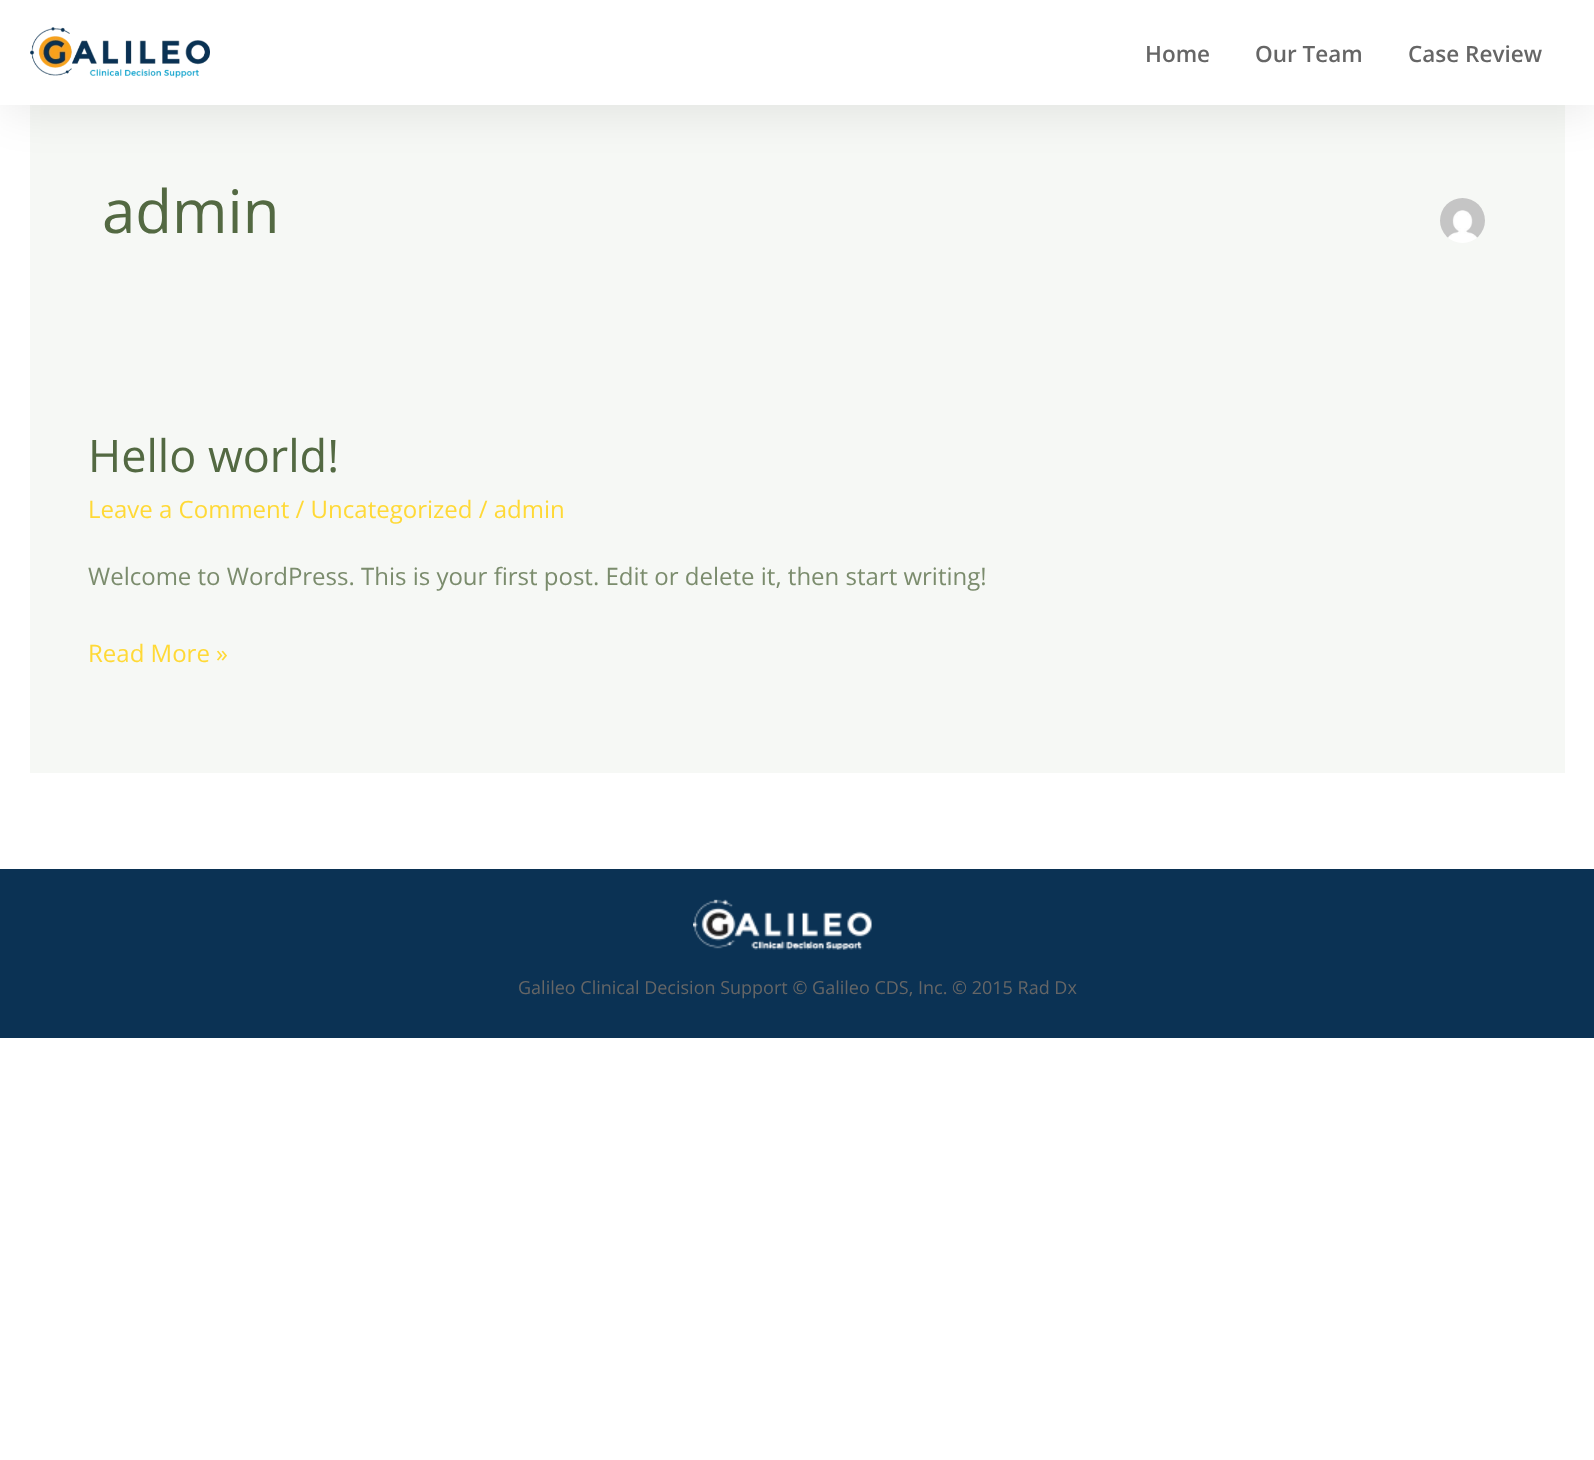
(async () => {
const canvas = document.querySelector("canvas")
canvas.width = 1594
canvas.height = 1460
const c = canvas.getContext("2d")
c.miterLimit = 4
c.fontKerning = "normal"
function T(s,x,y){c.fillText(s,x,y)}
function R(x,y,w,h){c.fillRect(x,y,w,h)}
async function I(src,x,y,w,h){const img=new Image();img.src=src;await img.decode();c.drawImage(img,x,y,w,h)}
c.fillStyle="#fff"
R(0,0,1594,1460)
c.fillStyle="#f6f8f5"
R(30,105,1535,668)
c.fillStyle="#00000014"
c.filter="blur(21.5px)"
c.beginPath()
c.rect(2,9,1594,105)
c.fill()
c.filter="none"
c.fillStyle="#fff"
R(0,0,1594,105)
await I("1.png",30,27,180,51)
c.font="600 22.5px Open Sans"
c.fillStyle="#666"
T("Home",1145,62)
T("Our Team",1255,62)
T("Case Review",1408,62)
c.font="60px Open Sans"
c.fillStyle="#536942"
T("admin",102,233)
await I("2.png",1440,198,45,45)
c.font="45px Open Sans"
T("Hello world!",88,472)
c.font="24px Open Sans"
c.fillStyle="#ffd936"
T("Leave a Comment / Uncategorized / admin",88,518)
c.fillStyle="#7b8c6d"
T("Welcome to WordPress. This is your first post. Edit or delete it, then start writing!",88,585)
c.fillStyle="#ffd936"
T("Read More »",88,662)
c.fillStyle="#0b3254"
R(0,869,1594,169)
await I("3.png",693,899,179,51)
c.font="18px Open Sans"
c.fillStyle="#666"
T("Galileo Clinical Decision Support © Galileo CDS, Inc. © 2015 Rad Dx",518,994)
})()
